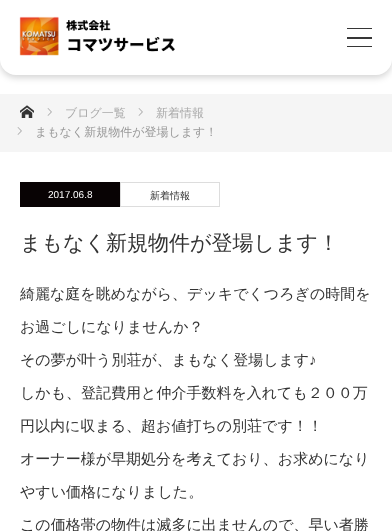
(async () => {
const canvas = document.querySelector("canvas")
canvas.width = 392
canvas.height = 531
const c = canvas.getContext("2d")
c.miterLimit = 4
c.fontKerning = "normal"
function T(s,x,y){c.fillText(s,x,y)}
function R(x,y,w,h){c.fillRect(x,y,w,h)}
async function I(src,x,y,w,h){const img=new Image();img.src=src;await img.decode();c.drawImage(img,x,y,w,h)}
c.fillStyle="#fff"
R(0,0,392,531)
c.fillStyle="#00000029"
c.filter="blur(3px)"
c.beginPath()
c.roundRect(0,3,392,75,16)
c.fill()
c.filter="none"
c.fillStyle="#fff"
c.beginPath()
c.roundRect(0,0,392,75,[0,0,16,16])
c.fill()
await I("1.png",19,16,156,40)
c.fillStyle="#363636"
R(347,28,25,1)
R(347,37,25,2)
R(347,46,25,1)
c.fillStyle="#f5f5f5"
R(0,94,392,58)
await I("2.png",20,105,14,13)
await I("3.png",47,108,5,8)
c.font="500 12px WenQuanYi Zen Hei"
c.fillStyle="#aaa"
T("ブログ一覧",65,117)
await I("3.png",138,108,5,8)
T("新着情報",156,117)
await I("3.png",17,127,5,8)
c.fillStyle="#999"
T("まもなく新規物件が登場します！",35,136)
c.fillStyle="#080304"
R(20,182,100,25)
c.font="10px Liberation Sans"
c.fillStyle="#fff"
T("2017.06.8",48,198)
c.strokeStyle="#ddd"
c.strokeRect(120.5,182.5,99,24)
c.font="500 10px WenQuanYi Zen Hei"
c.fillStyle="#333"
T("新着情報",150,199)
c.font="500 21px WenQuanYi Zen Hei"
T("まもなく新規物件が登場します！",20,250)
c.font="500 15px WenQuanYi Zen Hei"
T("綺麗な庭を眺めながら、デッキでくつろぎの時間を",20,299)
T("お過ごしになりませんか？",20,332)
T("その夢が叶う別荘が、まもなく登場します",20,365)
c.font="15px Liberation Sans"
T("♪",309,365)
c.font="500 15px WenQuanYi Zen Hei"
T("しかも、登記費用と仲介手数料を入れても２００万",20,398)
T("円以内に収まる、超お値打ちの別荘です！！",20,431)
T("オーナー様が早期処分を考えており、お求めになり",20,464)
T("やすい価格になりました。",20,497)
T("この価格帯の物件は滅多に出ませんので、早い者勝",20,530)
})()
